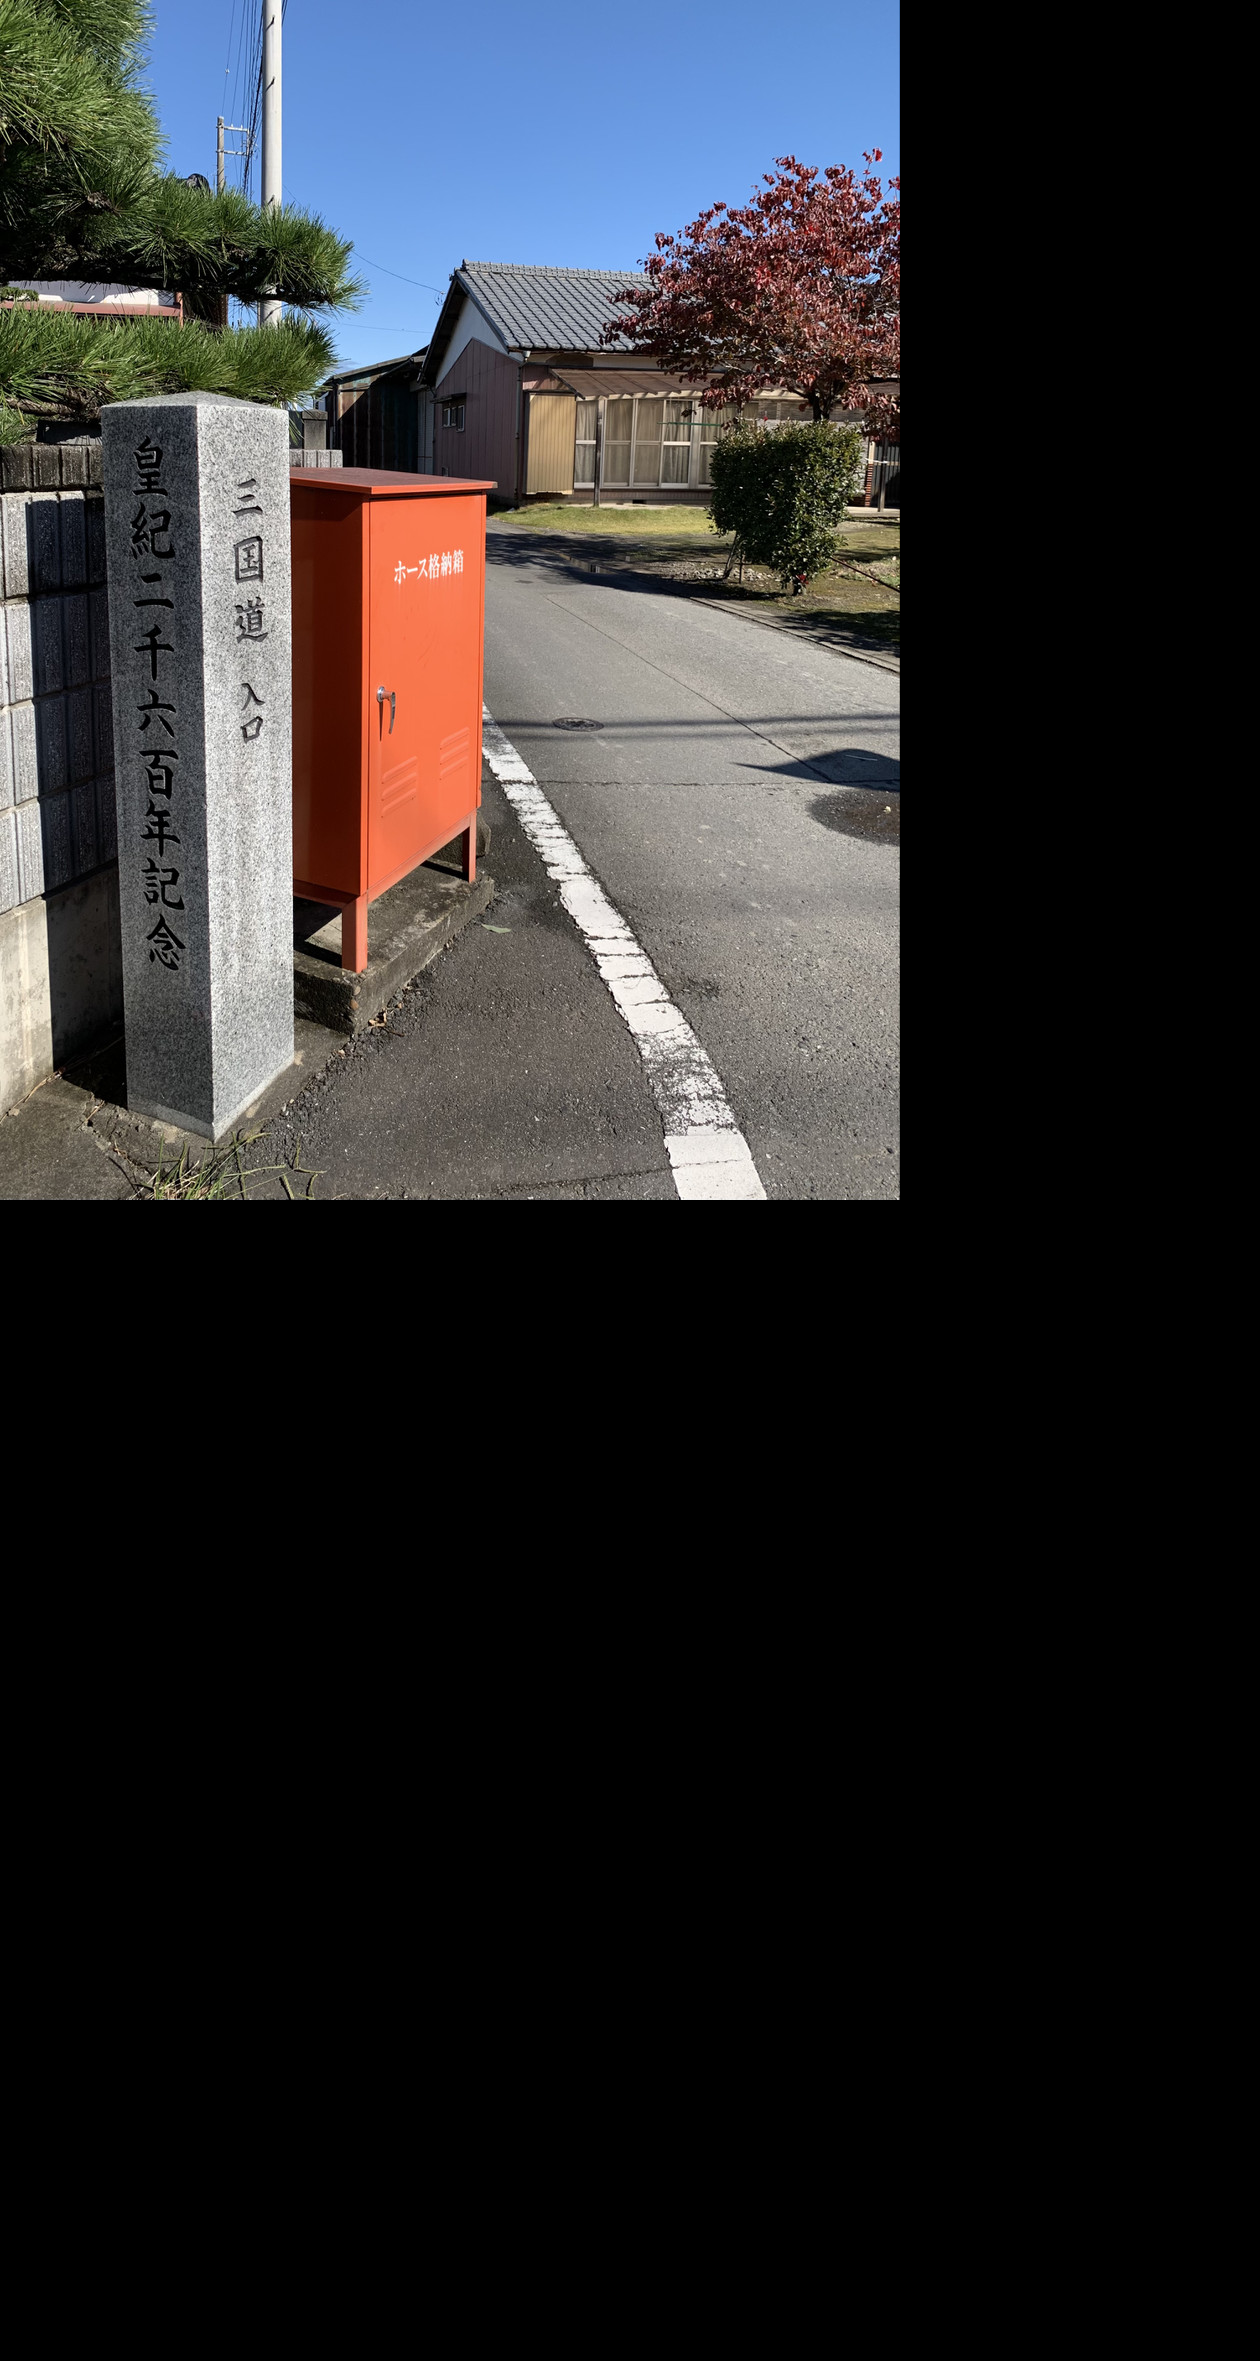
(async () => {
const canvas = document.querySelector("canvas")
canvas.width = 1260
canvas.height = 2361
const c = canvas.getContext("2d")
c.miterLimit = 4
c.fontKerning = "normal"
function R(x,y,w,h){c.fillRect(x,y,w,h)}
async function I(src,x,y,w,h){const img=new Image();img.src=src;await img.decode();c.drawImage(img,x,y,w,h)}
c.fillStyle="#000"
R(0,0,1260,2361)
await I("1.png",0,0,900,1200)
})()
